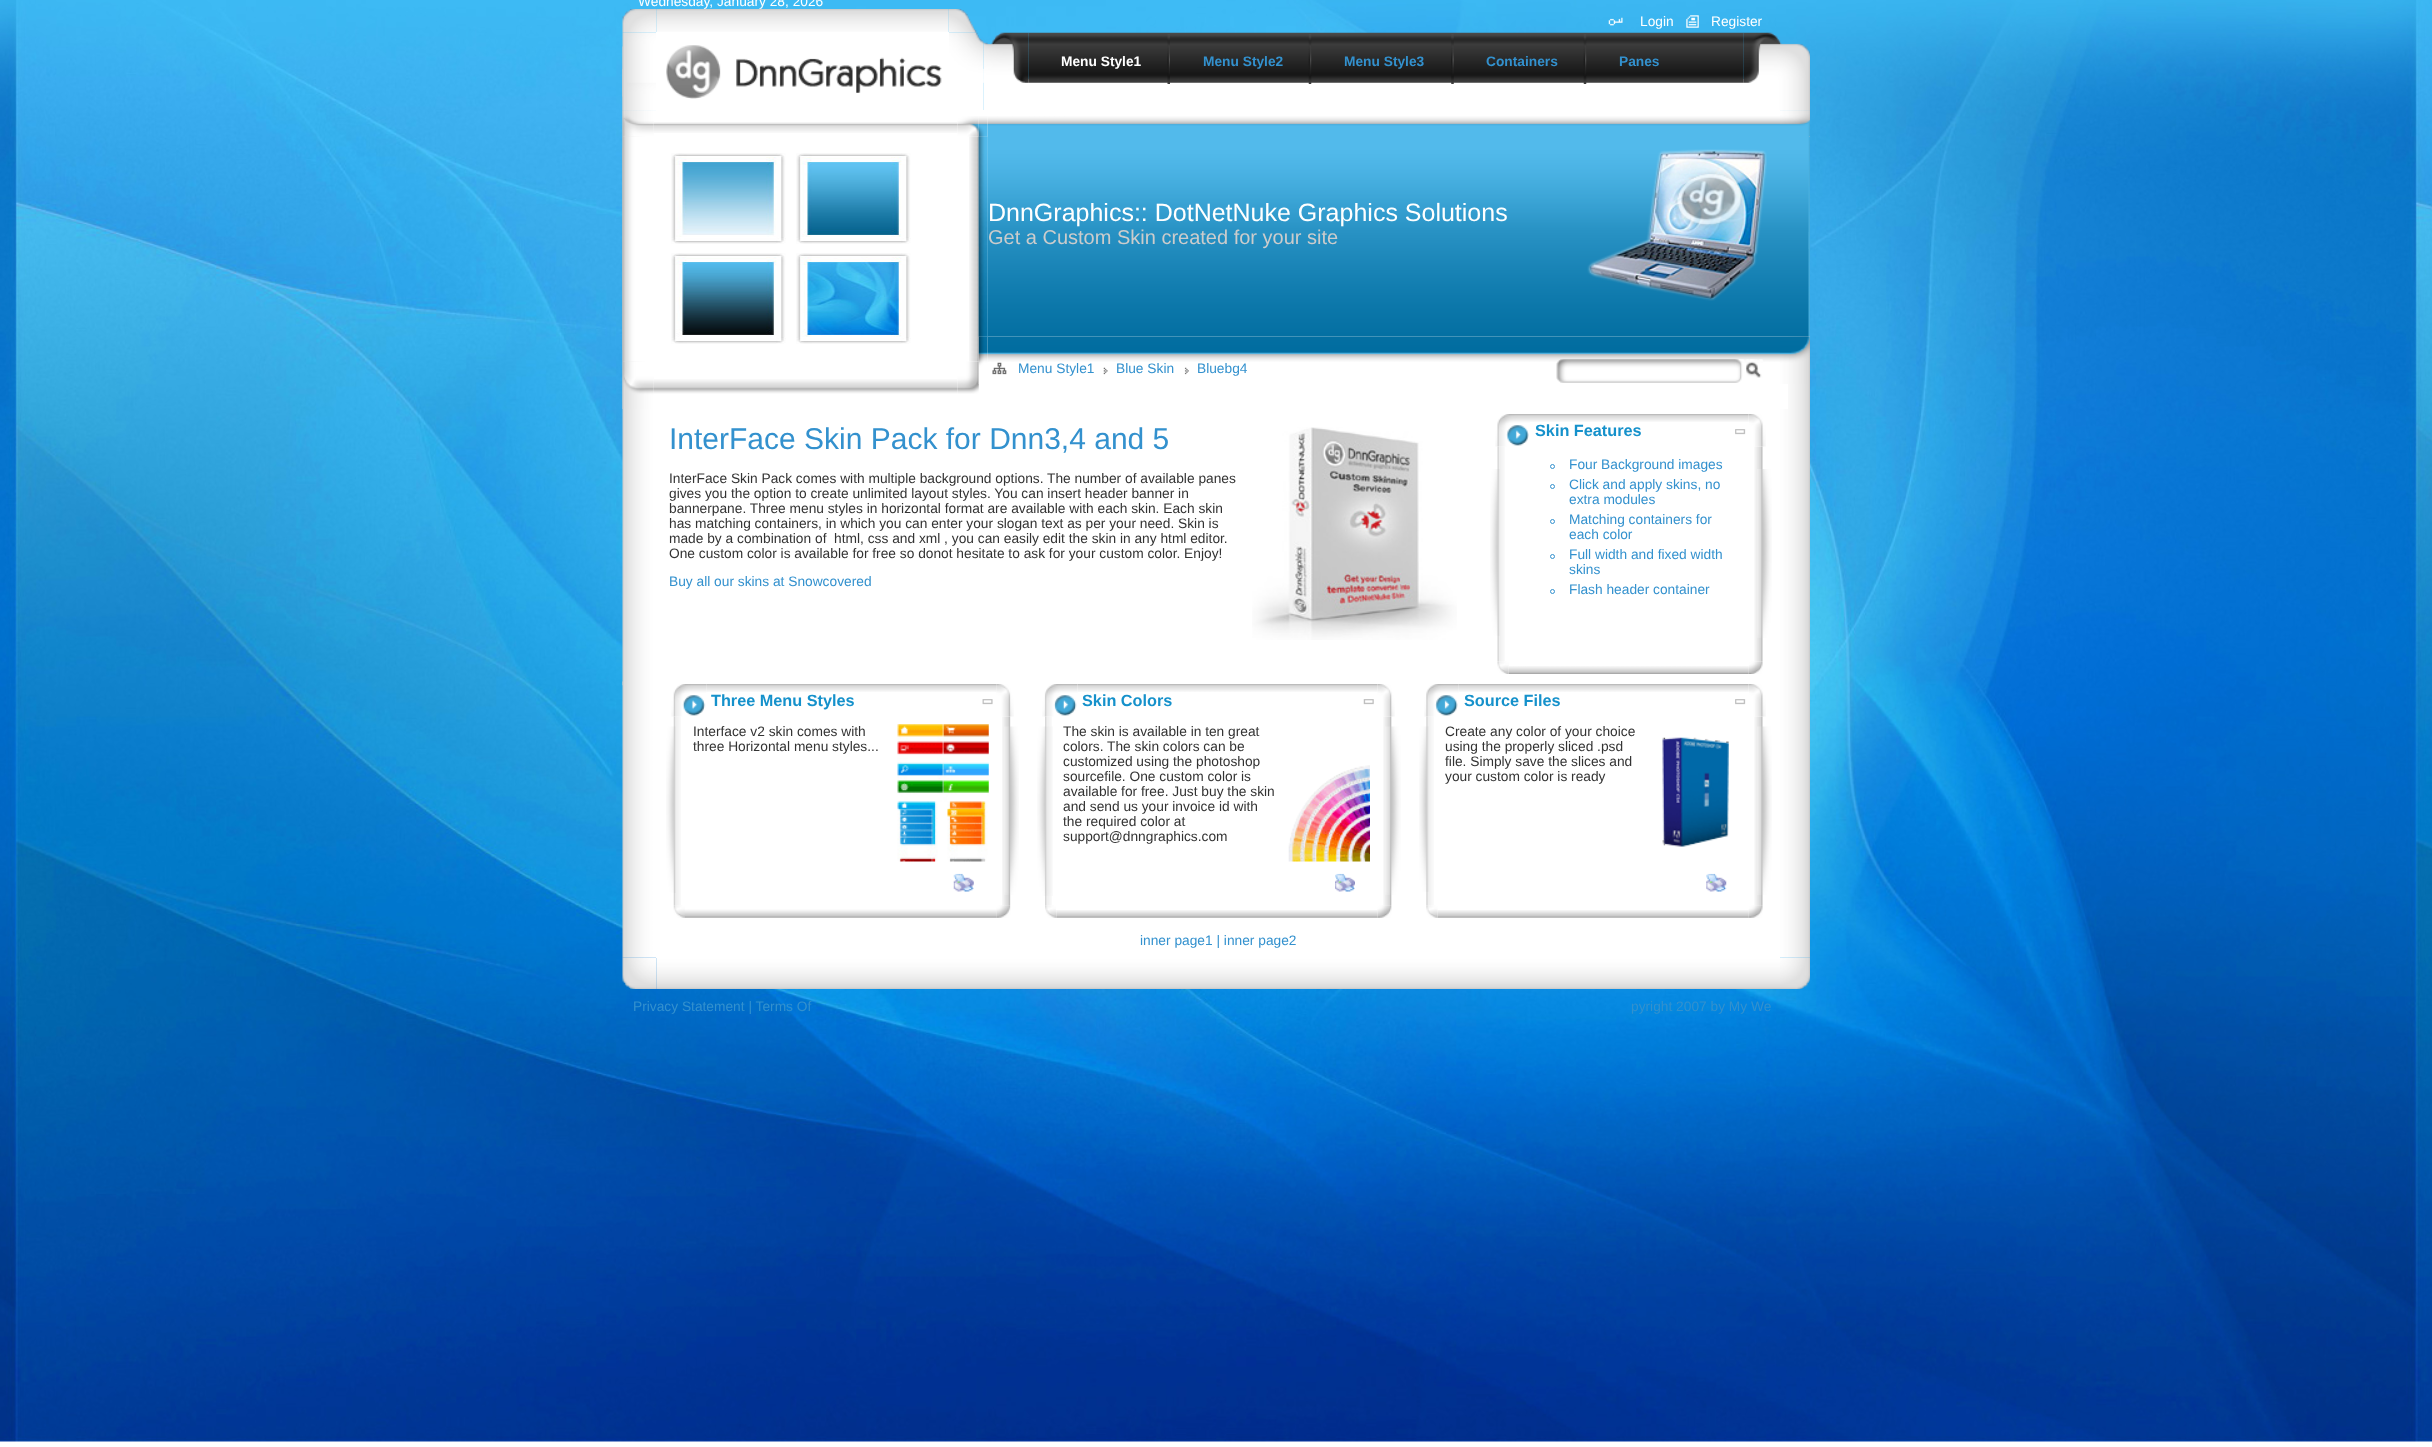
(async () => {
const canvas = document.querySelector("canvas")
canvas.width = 2432
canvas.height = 1447
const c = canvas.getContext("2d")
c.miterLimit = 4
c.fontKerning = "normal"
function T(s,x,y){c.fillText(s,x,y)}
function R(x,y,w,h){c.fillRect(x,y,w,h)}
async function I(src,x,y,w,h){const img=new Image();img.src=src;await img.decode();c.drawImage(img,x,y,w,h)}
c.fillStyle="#fff"
R(0,0,2432,1447)
await I("1.png",0,0,2432,1442)
c.font="13.75px Liberation Sans"
T("Wednesday, January 28, 2026",638,6)
await I("3.png",656,9,293,23)
await I("7.png",622,68,362,43)
await I("8.png",622,32,34,79)
R(656,32,293,38)
await I("2.png",622,9,35,24)
await I("4.png",948,9,29,24)
await I("5.png",1608,17,15,9)
T("Login",1640,26)
await I("6.png",1686,15,13,13)
T("Register",1711,26)
await I("9.png",622,46,1,51)
await I("10.png",666,45,276,54)
await I("12.png",983,78,827,33)
await I("11.png",949,32,35,51)
await I("14.png",1028,32,716,51)
await I("13.png",983,32,46,51)
c.font="bold 13.75px Liberation Sans"
T("Menu Style1",1061,66)
await I("15.png",1167,34,3,50)
c.fillStyle="#3391ce"
T("Menu Style2",1203,66)
await I("16.png",1308,34,4,50)
T("Menu Style3",1344,66)
await I("17.png",1451,34,3,50)
T("Containers",1486,66)
await I("18.png",1583,34,4,50)
T("Panes",1619,66)
await I("19.png",1743,32,67,51)
await I("20.png",622,110,34,4)
await I("21.png",622,110,34,4)
c.fillStyle="#fff"
R(656,110,1124,4)
await I("22.png",1780,110,30,4)
await I("23.png",1780,110,30,1)
R(645,114,1143,295)
await I("24.png",622,114,23,295)
await I("26.png",653,122,305,11)
await I("28.png",622,136,23,226)
await I("25.png",622,114,32,23)
await I("33.png",969,136,10,226)
await I("40.png",987,116,793,21)
await I("42.png",978,136,10,201)
await I("27.png",957,116,22,21)
c.fillStyle="#b9b9b980"
R(622,148,1,202)
await I("29.png",671,153,115,91)
await I("30.png",796,153,115,91)
await I("31.png",671,253,115,91)
await I("32.png",796,253,115,91)
await I("34.png",978,246,1,6)
await I("36.png",653,379,305,15)
await I("35.png",622,361,32,48)
await I("37.png",957,361,22,33)
await I("38.png",1788,136,22,273)
c.fillStyle="#52baeb"
R(988,136,821,200)
await I("44.png",987,136,822,201)
await I("39.png",978,116,10,21)
await I("46.png",1808,136,2,201)
await I("41.png",1780,114,30,23)
await I("48.png",987,336,793,26)
await I("43.png",978,136,10,201)
c.font="25px Liberation Sans"
c.fillStyle="#fff"
T("DnnGraphics:: DotNetNuke Graphics Solutions",988,221)
c.font="20px Liberation Sans"
c.fillStyle="#ccc"
T("Get a Custom Skin created for your site",988,244)
await I("45.png",1587,149,180,152)
c.fillStyle="#48abdb40"
R(1808,232,1,17)
await I("47.png",978,336,10,48)
await I("49.png",992,362,15,13)
c.font="13.75px Liberation Sans"
c.fillStyle="#3391ce"
T("Menu Style1",1018,373)
await I("50.png",1103,367,5,8)
T("Blue Skin",1116,373)
await I("51.png",1184,367,5,8)
T("Bluebg4",1197,373)
await I("52.png",1556,359,207,24)
await I("53.png",1780,336,30,48)
await I("54.png",622,409,34,549)
await I("55.png",622,681,1,5)
c.fillStyle="#fff"
R(656,409,1124,549)
c.font="30px Liberation Sans"
c.fillStyle="#3391ce"
T("InterFace Skin Pack for Dnn3,4 and 5",669,449)
await I("56.png",1252,427,205,213)
c.font="13.75px Liberation Sans"
c.fillStyle="#333"
T("InterFace Skin Pack comes with multiple background options. The number of available panes",669,483)
T("gives you the option to create unlimited layout styles. You can insert header banner in",669,498)
T("bannerpane. Three menu styles in horizontal format are available with each skin. Each skin",669,513)
T("has matching containers, in which you can enter your slogan text as per your need. Skin is",669,528)
T("made by a combination of  html, css and xml , you can easily edit the skin in any html editor.",669,543)
T("One custom color is available for free so donot hesitate to ask for your custom color. Enjoy!",669,558)
c.fillStyle="#3391ce"
T("Buy all our skins at Snowcovered",669,586)
await I("61.png",1497,446,8,216)
await I("57.png",1495,414,35,33)
await I("58.png",1530,414,219,8)
c.font="bold 16.25px Liberation Sans"
c.fillStyle="#1591cb"
T("Skin Features",1535,436)
await I("59.png",1735,429,11,6)
await I("63.png",1754,446,9,216)
await I("60.png",1749,414,17,33)
await I("62.png",1490,469,10,167)
c.beginPath()
c.arc(1552.5,466.5,2,0,7)
c.strokeStyle="#3391ce"
c.stroke()
c.font="13.75px Liberation Sans"
c.fillStyle="#3391ce"
T("Four Background images",1569,469)
c.beginPath()
c.arc(1552.5,486.5,2,0,7)
c.stroke()
T("Click and apply skins, no",1569,489)
T("extra modules",1569,504)
c.beginPath()
c.arc(1552.5,521.5,2,0,7)
c.stroke()
T("Matching containers for",1569,524)
T("each color",1569,539)
c.beginPath()
c.arc(1552.5,556.5,2,0,7)
c.stroke()
T("Full width and fixed width",1569,559)
T("skins",1569,574)
c.beginPath()
c.arc(1552.5,591.5,2,0,7)
c.stroke()
T("Flash header container",1569,594)
await I("64.png",1757,469,15,169)
await I("66.png",1508,666,241,8)
await I("65.png",1497,661,12,13)
await I("67.png",1748,661,15,13)
await I("69.png",706,684,291,8)
await I("72.png",673,716,8,190)
await I("68.png",671,684,36,33)
c.font="bold 16.25px Liberation Sans"
c.fillStyle="#1591cb"
T("Three Menu Styles",711,706)
await I("70.png",982,699,11,6)
await I("76.png",1002,716,9,190)
await I("71.png",996,684,18,33)
await I("73.png",666,726,10,167)
c.font="13.75px Liberation Sans"
c.fillStyle="#333"
T("Interface v2 skin comes with",693,736)
await I("74.png",897,724,92,138)
T("three Horizontal menu styles...",693,751)
await I("75.png",953,873,21,19)
await I("77.png",1004,726,15,169)
await I("78.png",673,905,12,13)
await I("79.png",685,909,312,9)
await I("80.png",996,905,15,13)
await I("82.png",1077,684,301,8)
await I("85.png",1045,716,7,190)
await I("81.png",1042,684,36,33)
c.font="bold 16.25px Liberation Sans"
c.fillStyle="#1591cb"
T("Skin Colors",1082,706)
await I("83.png",1363,699,11,6)
await I("89.png",1383,716,9,190)
await I("84.png",1377,684,18,33)
await I("86.png",1037,726,16,170)
c.font="13.75px Liberation Sans"
c.fillStyle="#333"
T("The skin is available in ten great",1063,736)
T("colors. The skin colors can be",1063,751)
T("customized using the photoshop",1063,766)
T("sourcefile. One custom color is",1063,781)
await I("87.png",1288,765,82,97)
T("available for free. Just buy the skin",1063,796)
T("and send us your invoice id with",1063,811)
T("the required color at",1063,826)
T("support@dnngraphics.com",1063,841)
await I("88.png",1335,873,20,19)
await I("90.png",1385,726,16,169)
await I("91.png",1045,905,11,13)
await I("92.png",1056,910,322,8)
await I("93.png",1377,905,15,13)
await I("95.png",1458,684,291,8)
await I("96.png",1426,716,8,190)
await I("94.png",1424,684,35,33)
c.font="bold 16.25px Liberation Sans"
c.fillStyle="#1591cb"
T("Source Files",1464,706)
await I("59.png",1735,699,11,6)
await I("100.png",1754,716,9,190)
await I("60.png",1749,684,17,33)
await I("97.png",1419,726,10,166)
c.font="13.75px Liberation Sans"
c.fillStyle="#333"
T("Create any color of your choice",1445,736)
T("using the properly sliced .psd",1445,751)
await I("98.png",1662,737,67,110)
T("file. Simply save the slices and",1445,766)
T("your custom color is ready",1445,781)
await I("99.png",1706,873,21,19)
await I("101.png",1757,726,15,169)
await I("103.png",1437,910,312,8)
await I("102.png",1426,905,12,13)
await I("104.png",1748,905,15,13)
c.fillStyle="#3391ce"
T("inner page1 | inner page2",1140,945)
await I("105.png",1780,409,30,549)
await I("107.png",656,958,1124,31)
await I("106.png",622,957,35,32)
await I("108.png",1780,957,30,32)
T("Privacy Statement | Terms Of",633,1011)
T("pyright 2007 by My We",1631,1011)
})()
